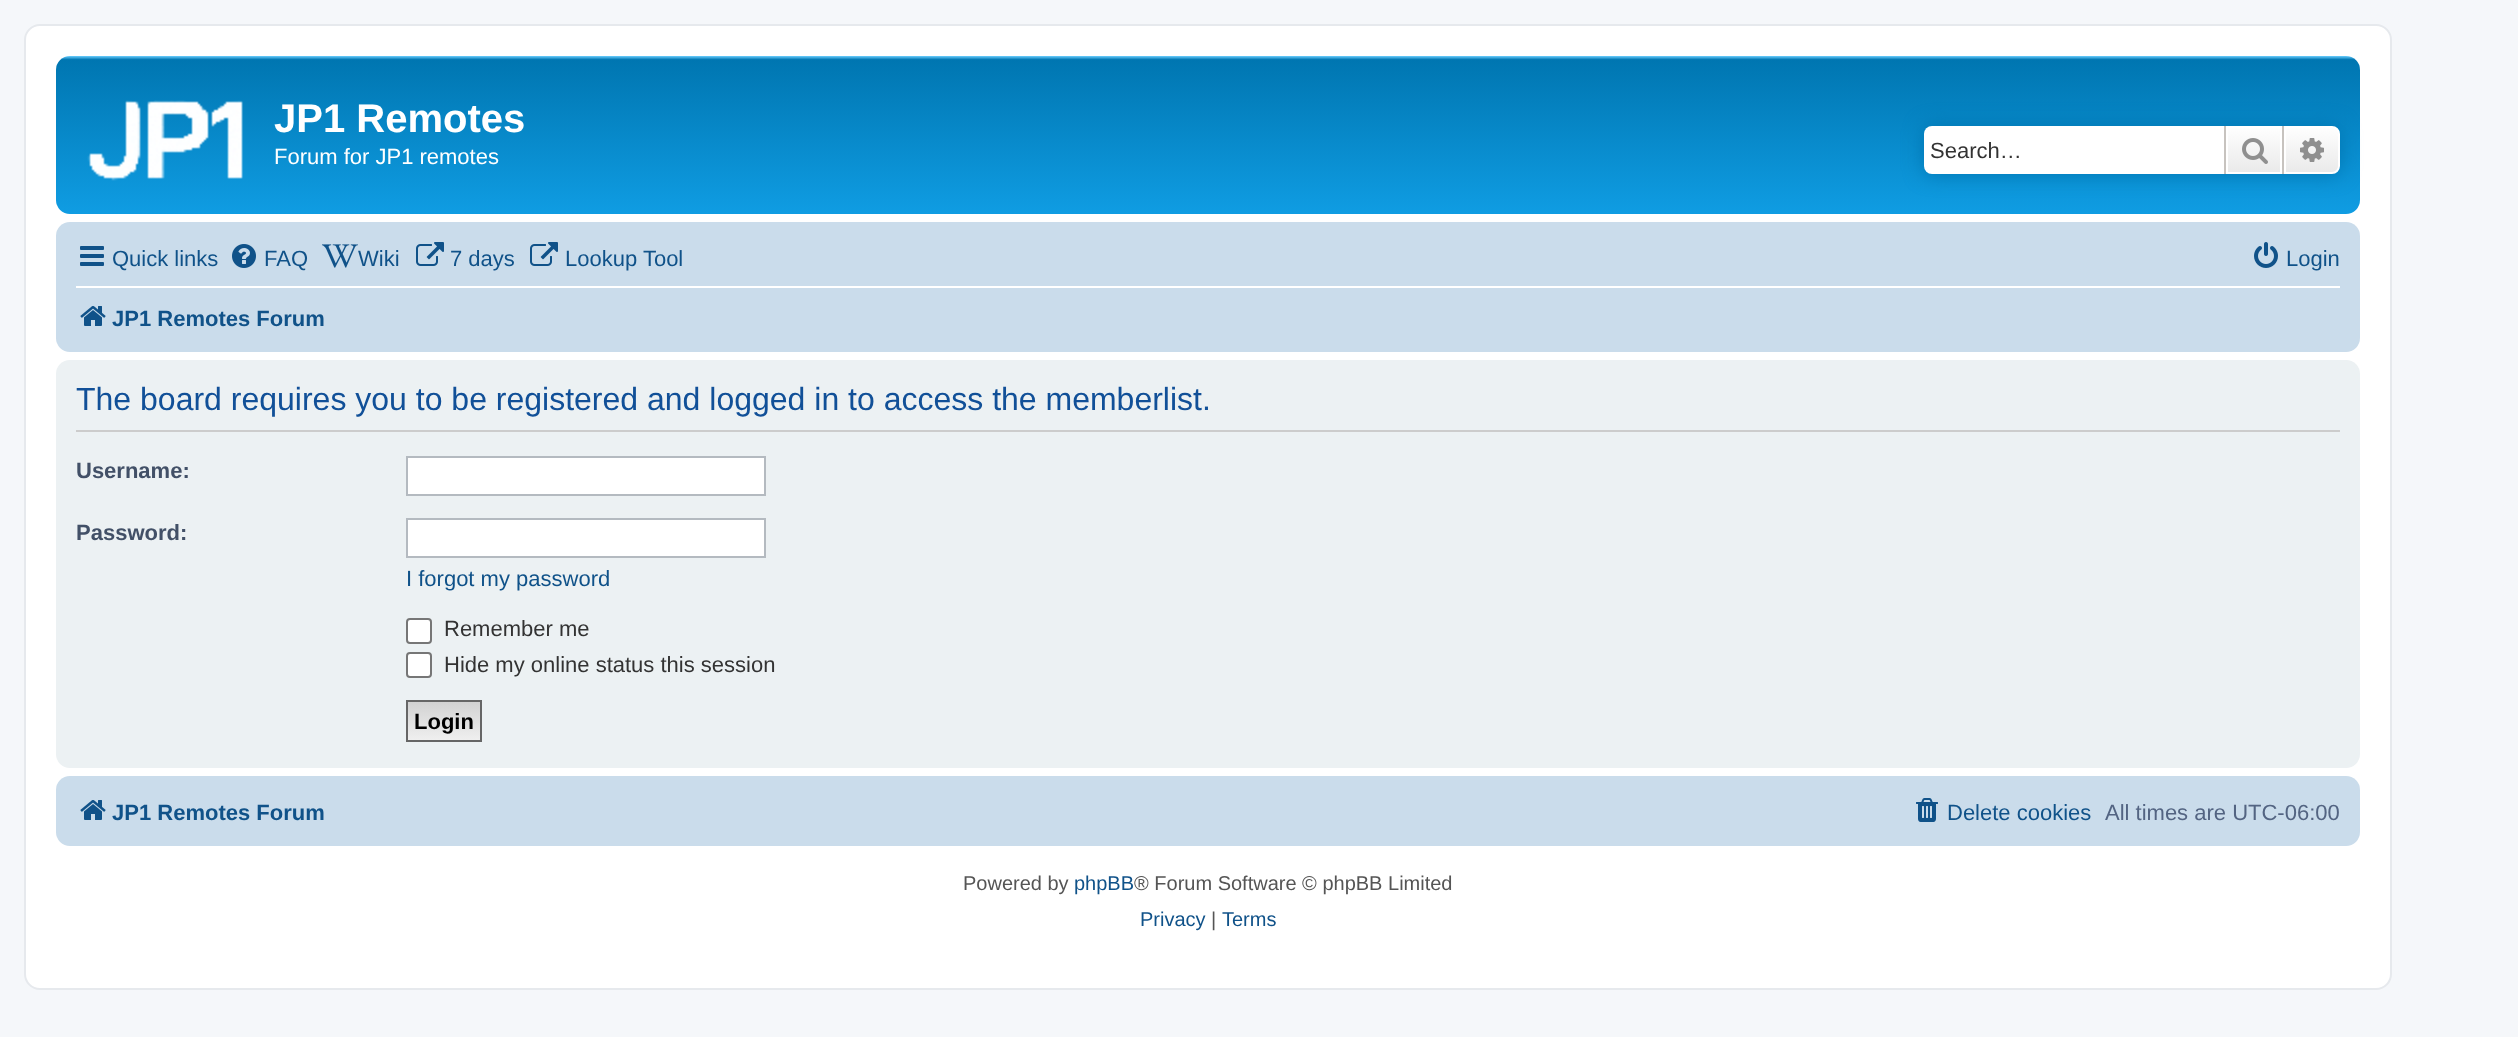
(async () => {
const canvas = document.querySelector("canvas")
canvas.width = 2518
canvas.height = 1037
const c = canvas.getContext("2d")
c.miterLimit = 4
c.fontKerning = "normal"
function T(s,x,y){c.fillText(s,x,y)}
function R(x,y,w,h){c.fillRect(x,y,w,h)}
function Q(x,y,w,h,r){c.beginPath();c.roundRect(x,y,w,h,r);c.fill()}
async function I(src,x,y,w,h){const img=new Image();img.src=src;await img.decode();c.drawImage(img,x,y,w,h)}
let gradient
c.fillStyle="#f5f7fa"
R(0,0,2518,1037)
c.fillStyle="#fff"
c.beginPath()
c.roundRect(25,25,2366,964,15)
c.fill()
c.strokeStyle="#e6e9ed"
c.lineWidth=2
c.stroke()
gradient = c.createLinearGradient(1208,56,1208,240)
gradient.addColorStop(0,"#6aceff")
gradient.addColorStop(.02,"#0076b1")
gradient.addColorStop(1,"#12a3eb")
c.fillStyle = gradient
Q(56,56,2304,158,14)
await I("1.png",87,100,156,81)
c.font="bold 40px Liberation Sans"
c.fillStyle="#fff"
T("JP1 Remotes",274,132)
c.font="22px Liberation Sans"
T("Forum for JP1 remotes",274,164)
c.fillStyle="#0075b0"
c.filter="blur(10px)"
c.beginPath()
c.roundRect(1924,126,416,48,8)
c.fill()
c.filter="none"
c.fillStyle="#fff"
c.beginPath()
c.roundRect(1924,126,300,48,[8,0,0,8])
c.fill()
c.fillStyle="#333"
T("Search…",1930,158)
gradient = c.createLinearGradient(2254,126,2254,174)
gradient.addColorStop(0,"#fff")
gradient.addColorStop(1,"#e9e9e9")
c.fillStyle = gradient
R(2228,128,52,44)
c.strokeStyle="#fff"
c.strokeRect(2227,127,54,46)
c.fillStyle="#c7c3bf"
R(2282,126,2,48)
R(2224,126,2,48)
await I("2.png",2242,138,26,26)
gradient = c.createLinearGradient(2312,126,2312,174)
gradient.addColorStop(0,"#fff")
gradient.addColorStop(1,"#e9e9e9")
c.fillStyle = gradient
c.beginPath()
c.roundRect(2285,127,54,46,[0,7,7,0])
c.fill()
c.stroke()
await I("3.png",2300,138,24,24)
c.fillStyle="#cadceb"
Q(56,222,2304,130,14)
await I("4.png",80,246,24,20)
c.fillStyle="#105289"
T("Quick links",112,266)
await I("5.png",232,244,24,24)
T("FAQ",264,266)
await I("6.png",322,244,36,24)
T("Wiki",358,266)
await I("7.png",416,242,28,24)
T("7 days",450,266)
await I("7.png",530,242,28,24)
T("Lookup Tool",565,266)
await I("8.png",2254,242,24,26)
T("Login",2286,266)
c.fillStyle="#fff"
R(76,286,2264,2)
await I("9.png",80,306,26,20)
c.font="bold 22px Liberation Sans"
c.fillStyle="#105289"
T("JP1 Remotes Forum",112,326)
c.fillStyle="#ecf1f3"
Q(56,360,2304,408,14)
c.fillStyle="#ccc"
R(76,430,2264,2)
c.font="32px Liberation Sans"
c.fillStyle="#115098"
T("The board requires you to be registered and logged in to access the memberlist.",76,410)
c.font="bold 22px Liberation Sans"
c.fillStyle="#425067"
T("Username:",76,478)
c.fillStyle="#fff"
c.beginPath()
c.rect(407,457,358,38)
c.fill()
c.strokeStyle="#b4bac0"
c.stroke()
c.fillStyle="#425067"
T("Password:",76,540)
c.fillStyle="#fff"
c.beginPath()
c.rect(407,519,358,38)
c.fill()
c.stroke()
c.font="22px Liberation Sans"
c.fillStyle="#105289"
T("I forgot my password",406,586)
c.fillStyle="#fff"
c.beginPath()
c.roundRect(407,619,24,24,3)
c.fill()
c.strokeStyle="#767676"
c.stroke()
c.fillStyle="#333"
T("Remember me",444,636)
c.fillStyle="#fff"
c.beginPath()
c.roundRect(407,653,24,24,3)
c.fill()
c.stroke()
c.fillStyle="#333"
T("Hide my online status this session",444,672)
gradient = c.createLinearGradient(444,702,444,740)
gradient.addColorStop(0,"#d2d2d2")
gradient.addColorStop(1,"#efefef")
c.fillStyle = gradient
R(408,702,72,38)
c.strokeStyle="#666"
c.strokeRect(407,701,74,40)
c.font="bold 22px Liberation Sans"
c.fillStyle="#000"
T("Login",414,729)
c.fillStyle="#cadceb"
Q(56,776,2304,70,14)
await I("9.png",80,800,26,20)
c.fillStyle="#105289"
T("JP1 Remotes Forum",112,820)
await I("10.png",1916,798,22,24)
c.font="22px Liberation Sans"
T("Delete cookies",1947,820)
c.fillStyle="#536482"
T("All times are UTC-06:00",2105,820)
c.font="20px Liberation Sans"
c.fillStyle="#555"
T("Powered by",963,890)
c.fillStyle="#105289"
T("phpBB",1074,890)
c.fillStyle="#555"
T("® Forum Software © phpBB Limited",1134,890)
c.fillStyle="#105289"
T("Privacy",1140,926)
c.fillStyle="#555"
T("|",1211,926)
c.fillStyle="#105289"
T("Terms",1222,926)
})()
